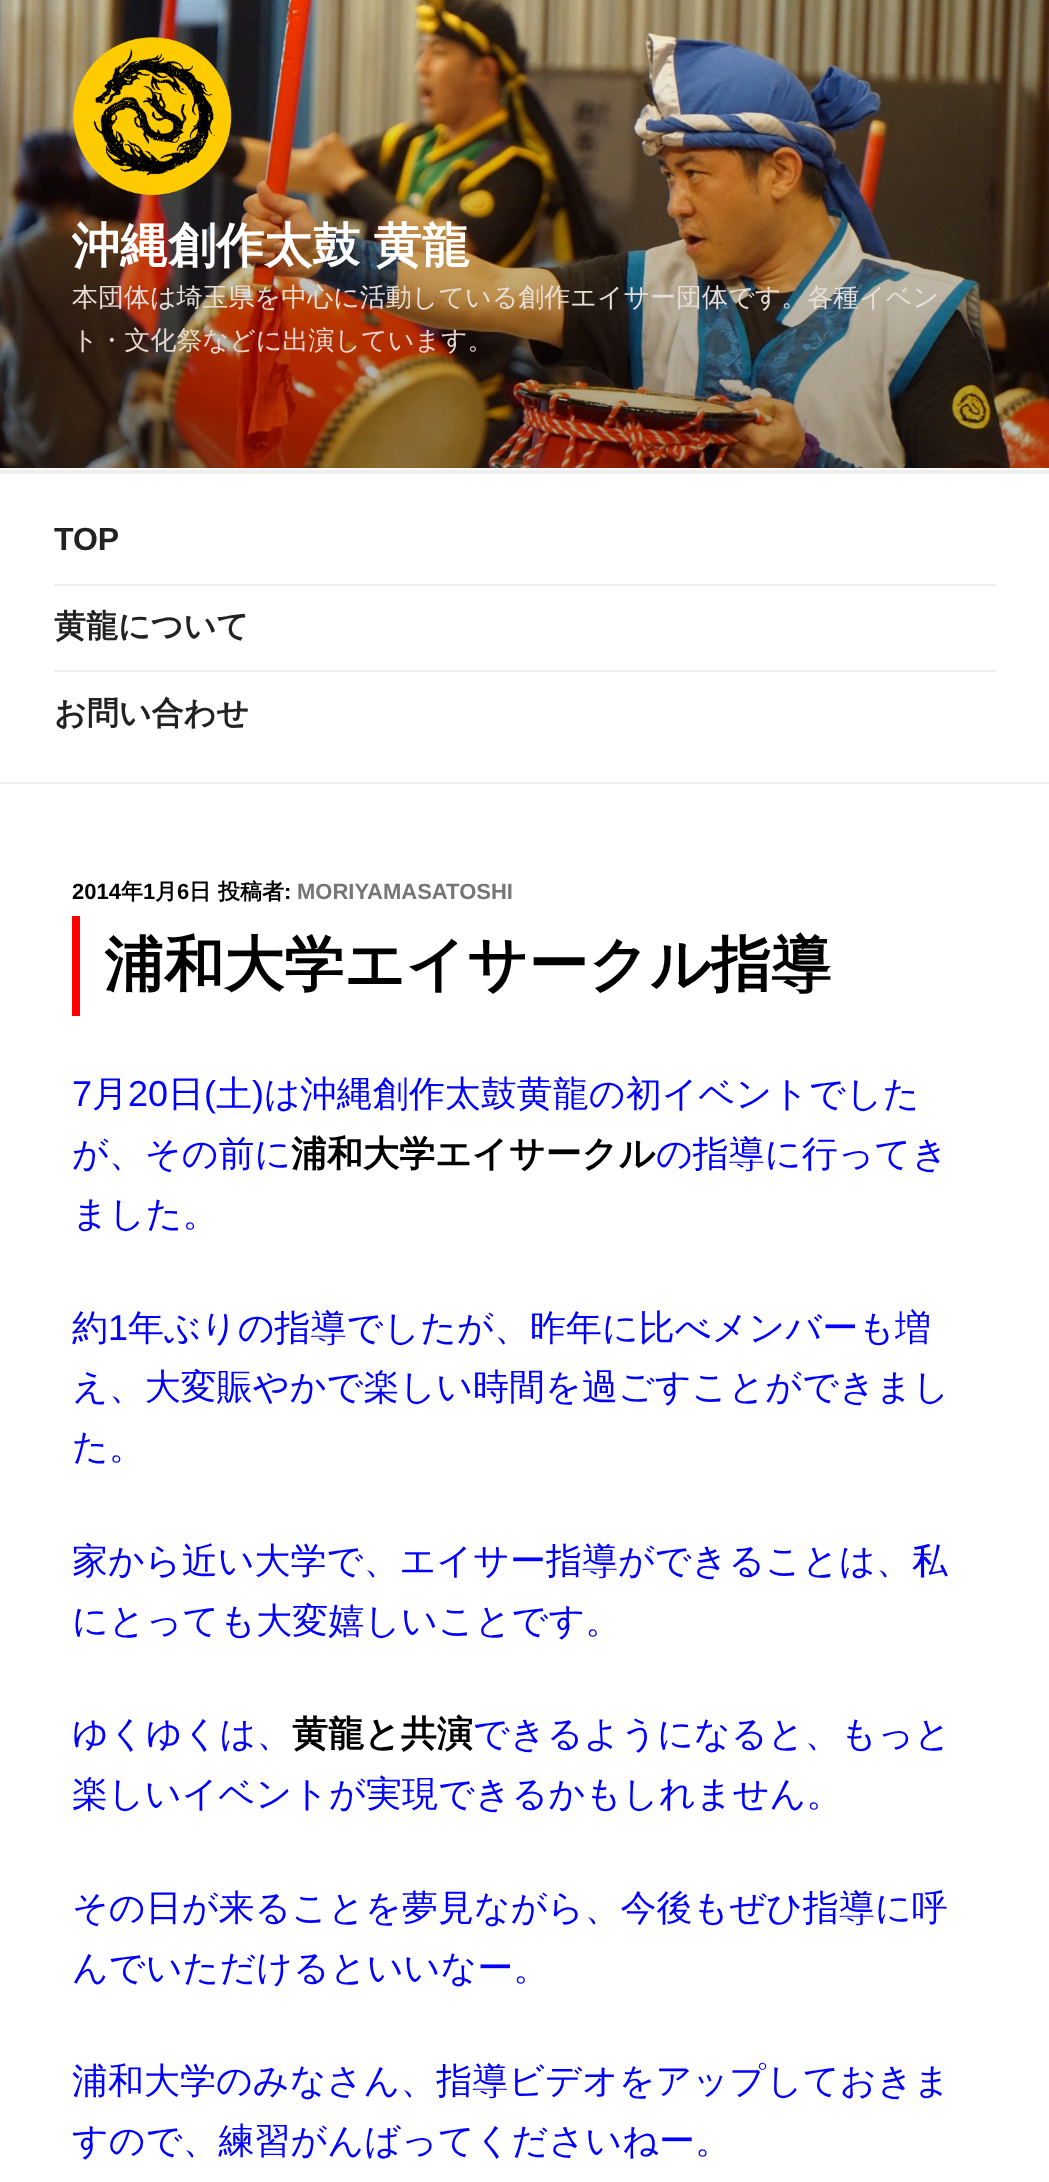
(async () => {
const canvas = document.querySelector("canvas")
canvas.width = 1049
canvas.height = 2182
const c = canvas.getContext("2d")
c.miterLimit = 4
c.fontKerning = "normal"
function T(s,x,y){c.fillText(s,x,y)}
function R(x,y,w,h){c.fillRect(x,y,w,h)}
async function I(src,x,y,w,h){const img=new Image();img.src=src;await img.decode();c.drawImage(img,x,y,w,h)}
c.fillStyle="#fff"
R(0,0,1049,2182)
c.fillStyle="#fafafa"
R(0,468,1049,2)
await I("1.png",0,0,1049,468)
await I("2.png",73,37,159,159)
c.wordSpacing="-1px"
c.font="bold 48px WenQuanYi Zen Hei"
c.fillStyle="#fff"
T("沖縄創作太鼓 黄龍",72,262)
c.wordSpacing="0px"
c.font="500 26px WenQuanYi Zen Hei"
c.fillStyle="#e5ded9"
T("本団体は埼玉県を中心に活動している創作エイサー団体です。各種イベン",72,306)
c.fillStyle="#e7d6d0"
T("ト・文化祭などに出演しています。",72,349)
c.fillStyle="#eee"
R(0,470,1049,4)
R(0,782,1049,2)
R(54,584,942,2)
c.font="bold 32px Liberation Sans"
c.fillStyle="#222"
T("TOP",54,550)
c.fillStyle="#eee"
R(54,670,942,2)
c.font="bold 32px WenQuanYi Zen Hei"
c.fillStyle="#222"
T("黄龍について",54,637)
T("お問い合わせ",54,724)
c.font="bold 22px Liberation Sans"
c.fillStyle="#000"
T("2014",72,899)
c.font="bold 22px WenQuanYi Zen Hei"
T("年",121,899)
c.font="bold 22px Liberation Sans"
T("1",143,899)
c.font="bold 22px WenQuanYi Zen Hei"
T("月",155,899)
c.font="bold 22px Liberation Sans"
T("6",177,899)
c.font="bold 22px WenQuanYi Zen Hei"
T("日",189,899)
T("投稿者",218,899)
c.font="bold 22px Liberation Sans"
T(":",284,899)
c.fillStyle="#767676"
T("MORIYAMASATOSHI",297,899)
c.fillStyle="#f00"
R(72,916,8,100)
c.font="bold 60px WenQuanYi Zen Hei"
c.fillStyle="#000"
T("浦和大学エイサークル指導",104,985)
c.font="36px Liberation Sans"
c.fillStyle="#00f"
T("7",72,1106)
c.font="500 36px WenQuanYi Zen Hei"
T("月",92,1106)
c.font="36px Liberation Sans"
T("20",128,1106)
c.font="500 36px WenQuanYi Zen Hei"
T("日",168,1106)
c.font="36px Liberation Sans"
T("(",204,1106)
c.font="500 36px WenQuanYi Zen Hei"
T("土",216,1106)
c.font="36px Liberation Sans"
T(")",252,1106)
c.font="500 36px WenQuanYi Zen Hei"
T("は沖縄創作太鼓黄龍の初イベントでした",264,1106)
T("が、その前に",72,1166)
c.font="bold 36px WenQuanYi Zen Hei"
c.fillStyle="#000"
T("浦和大学エイサークル",291,1166)
c.font="500 36px WenQuanYi Zen Hei"
c.fillStyle="#00f"
T("の指導に行ってき",656,1166)
T("ました。",72,1226)
T("約",72,1340)
c.font="36px Liberation Sans"
T("1",108,1340)
c.font="500 36px WenQuanYi Zen Hei"
T("年ぶりの指導でしたが、昨年に比べメンバーも増",128,1340)
T("え、大変賑やかで楽しい時間を過ごすことができまし",72,1399)
T("た。",72,1459)
T("家から近い大学で、エイサー指導ができることは、私",72,1573)
T("にとっても大変嬉しいことです。",72,1633)
T("ゆくゆくは、",72,1746)
c.font="bold 36px WenQuanYi Zen Hei"
c.fillStyle="#000"
T("黄龍と共演",292,1746)
c.font="500 36px WenQuanYi Zen Hei"
c.fillStyle="#00f"
T("できるようになると、もっと",473,1746)
T("楽しいイベントが実現できるかもしれません。",72,1806)
T("その日が来ることを夢見ながら、今後もぜひ指導に呼",72,1920)
T("んでいただけるといいなー。",72,1980)
T("浦和大学のみなさん、指導ビデオをアップしておきま",72,2093)
T("すので、練習がんばってくださいねー。",72,2153)
})()
